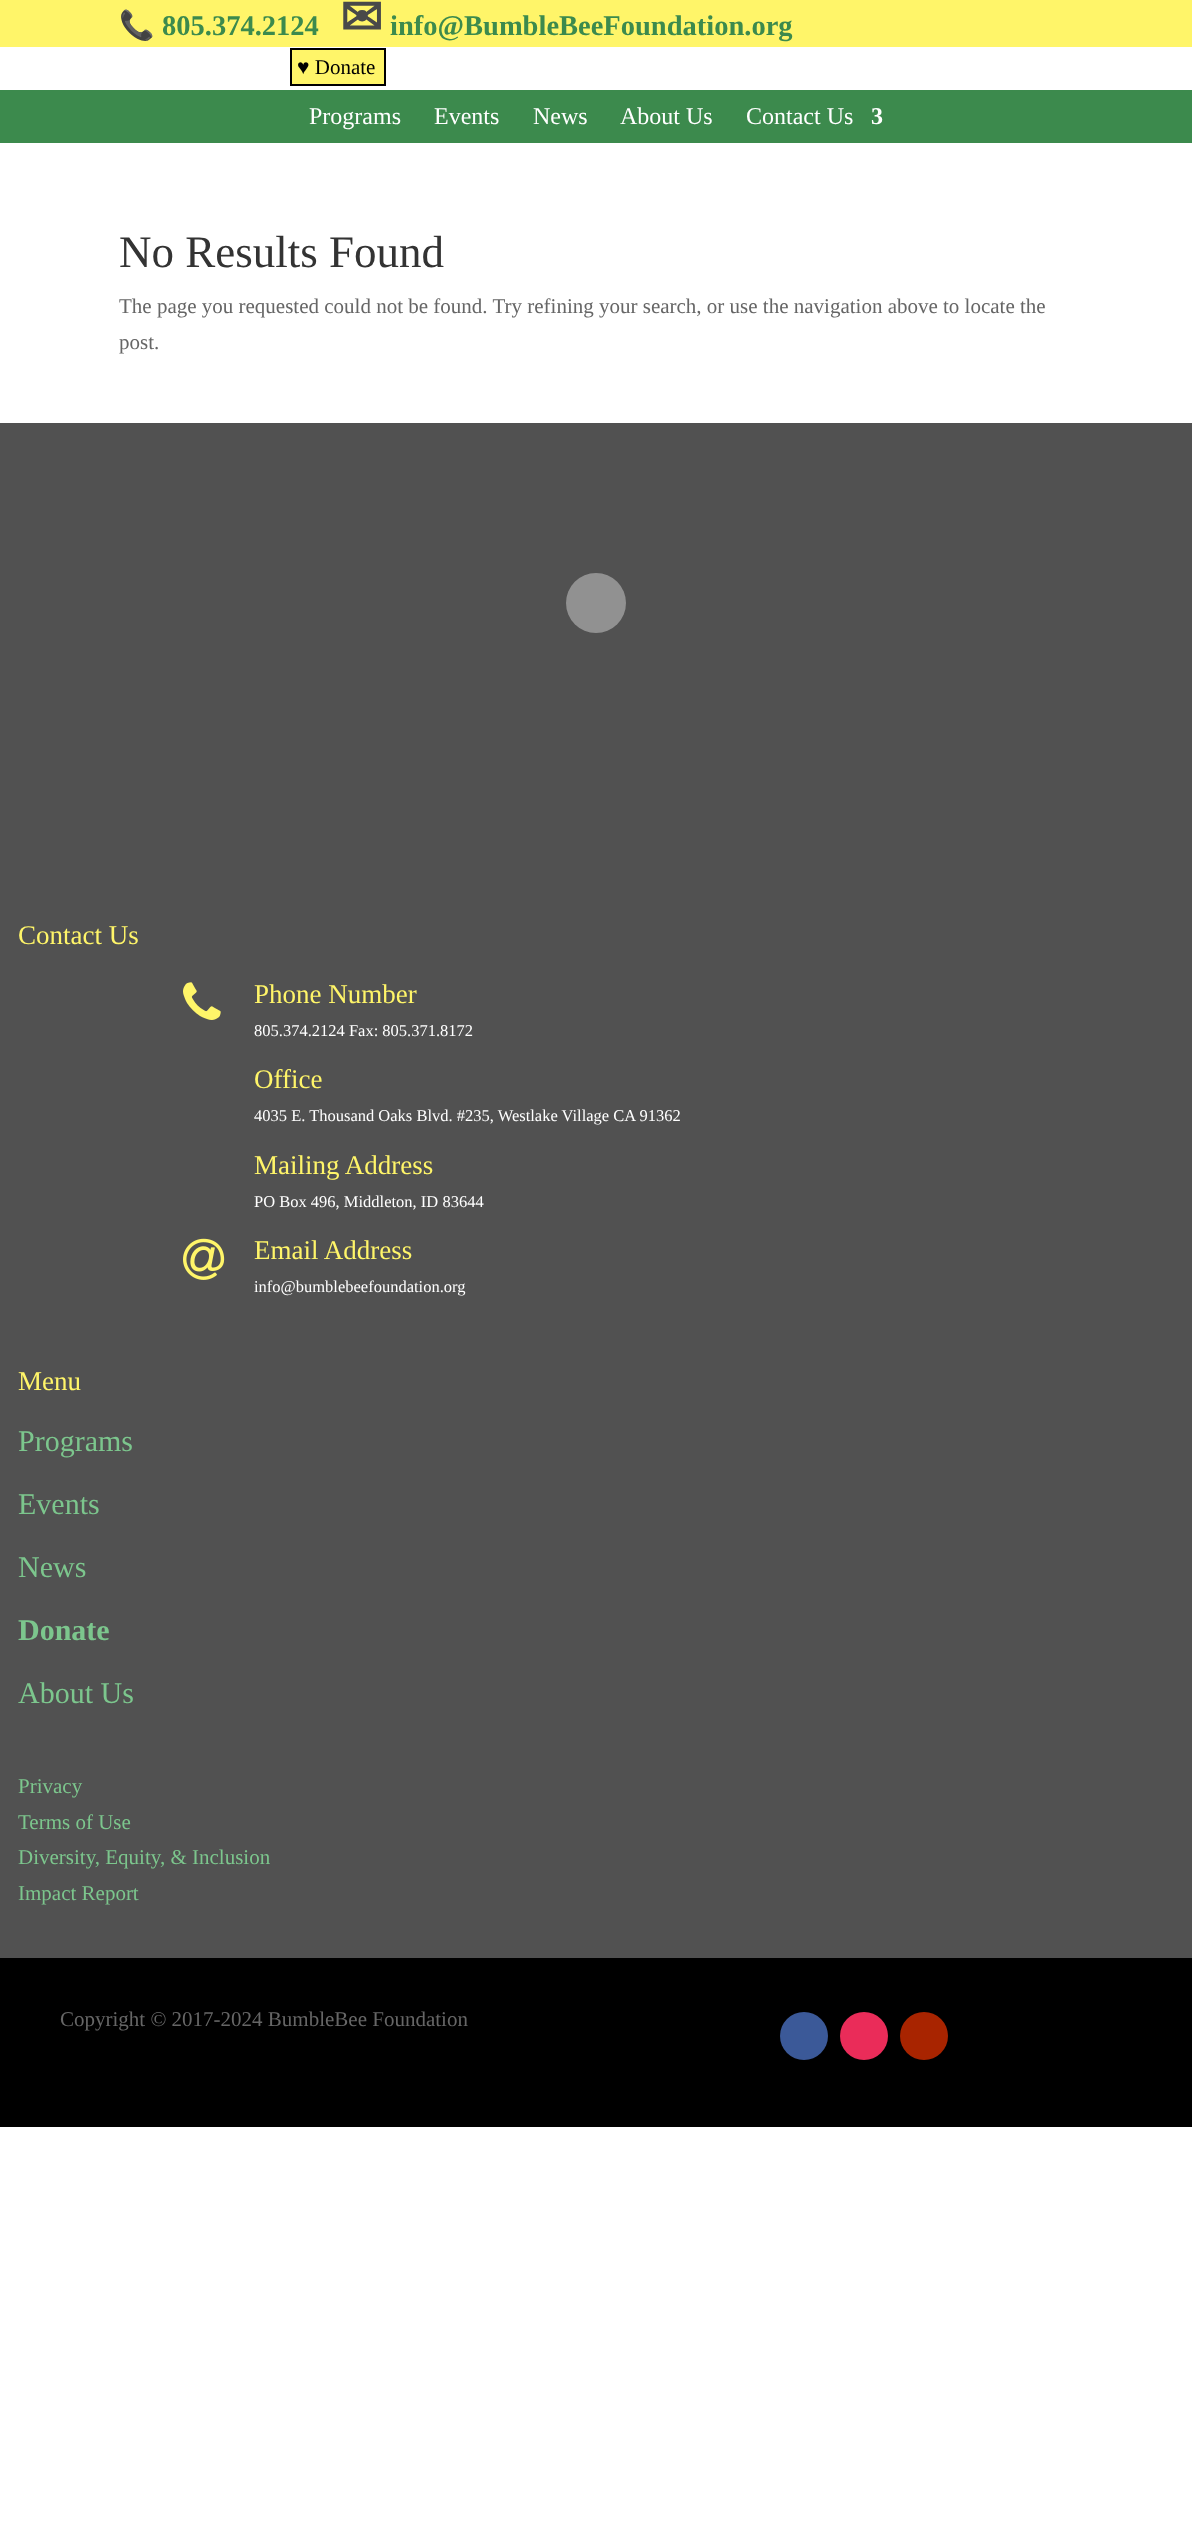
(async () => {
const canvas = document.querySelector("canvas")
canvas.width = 1192
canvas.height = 2521
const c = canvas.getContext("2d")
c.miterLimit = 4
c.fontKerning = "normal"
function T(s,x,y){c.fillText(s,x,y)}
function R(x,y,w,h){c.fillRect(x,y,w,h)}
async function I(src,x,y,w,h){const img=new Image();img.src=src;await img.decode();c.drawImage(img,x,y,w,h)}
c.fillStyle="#fff"
R(0,0,1192,2521)
c.fillStyle="#fff569"
R(0,0,1192,47)
c.font="bold 28.5px Noto Color Emoji"
c.fillStyle="#3c8a4d"
T("📞",119,35)
c.font="bold 28.5px Liberation Serif"
T("805.374.2124",162,35)
c.font="bold 51px DejaVu Sans"
c.fillStyle="#494949"
T("✉",340,35)
c.font="bold 28.5px Liberation Serif"
c.fillStyle="#3c8a4d"
T("info@BumbleBeeFoundation.org",390,35)
c.fillStyle="#fff569"
c.beginPath()
c.rect(291,49,94,36)
c.fill()
c.strokeStyle="#000"
c.lineWidth=2
c.stroke()
c.font="21px Liberation Serif"
c.fillStyle="#000"
T("♥ Donate",297,74)
c.fillStyle="#3c8a4d"
R(0,90,1192,53)
c.font="24px Liberation Serif"
c.fillStyle="#fff"
T("Programs",309,124)
T("Events",434,124)
T("News",533,124)
T("About Us",620,124)
T("Contact Us",746,124)
c.font="bold 24px Liberation Serif"
T("3",871,124)
c.font="45px Liberation Serif"
c.fillStyle="#333"
T("No Results Found",119,267)
c.font="21px Liberation Serif"
c.fillStyle="#666"
T("The page you requested could not be found. Try refining your search, or use the navigation above to locate the",119,313)
T("post.",119,349)
c.fillStyle="#515151"
R(0,423,1192,1535)
c.fillStyle="#919191"
c.beginPath()
c.arc(596,603,30,0,7)
c.fill()
c.font="27px Liberation Serif"
c.fillStyle="#fff569"
T("Contact Us",18,944)
await I("1.png",183,982,38,38)
T("Phone Number",254,1003)
c.font="16.5px Liberation Serif"
c.fillStyle="#fff"
T("805.374.2124 Fax: 805.371.8172",254,1036)
c.font="27px Liberation Serif"
c.fillStyle="#fff569"
T("Office",254,1088)
c.font="16.5px Liberation Serif"
c.fillStyle="#fff"
T("4035 E. Thousand Oaks Blvd. #235, Westlake Village CA 91362",254,1121)
c.font="27px Liberation Serif"
c.fillStyle="#fff569"
T("Mailing Address",254,1174)
c.font="16.5px Liberation Serif"
c.fillStyle="#fff"
T("PO Box 496, Middleton, ID 83644",254,1207)
await I("2.png",183,1238,42,42)
c.font="27px Liberation Serif"
c.fillStyle="#fff569"
T("Email Address",254,1259)
c.font="16.5px Liberation Serif"
c.fillStyle="#fff"
T("info@bumblebeefoundation.org",254,1292)
c.font="27px Liberation Serif"
c.fillStyle="#fff569"
T("Menu",18,1390)
c.font="30px Liberation Serif"
c.fillStyle="#7cc68d"
T("Programs",18,1451)
T("Events",18,1514)
T("News",18,1577)
c.font="bold 30px Liberation Serif"
T("Donate",18,1640)
c.font="30px Liberation Serif"
T("About Us",18,1703)
c.font="21px Liberation Serif"
T("Privacy",18,1793)
T("Terms of Use",18,1829)
T("Diversity, Equity, & Inclusion",18,1864)
T("Impact Report",18,1900)
c.fillStyle="#000"
R(0,1958,1192,169)
c.fillStyle="#666"
T("Copyright © 2017-2024 BumbleBee Foundation",60,2026)
c.fillStyle="#3b5998"
c.beginPath()
c.arc(804,2036,24,0,7)
c.fill()
c.fillStyle="#ea2c59"
c.beginPath()
c.arc(864,2036,24,0,7)
c.fill()
c.fillStyle="#a82400"
c.beginPath()
c.arc(924,2036,24,0,7)
c.fill()
})()
